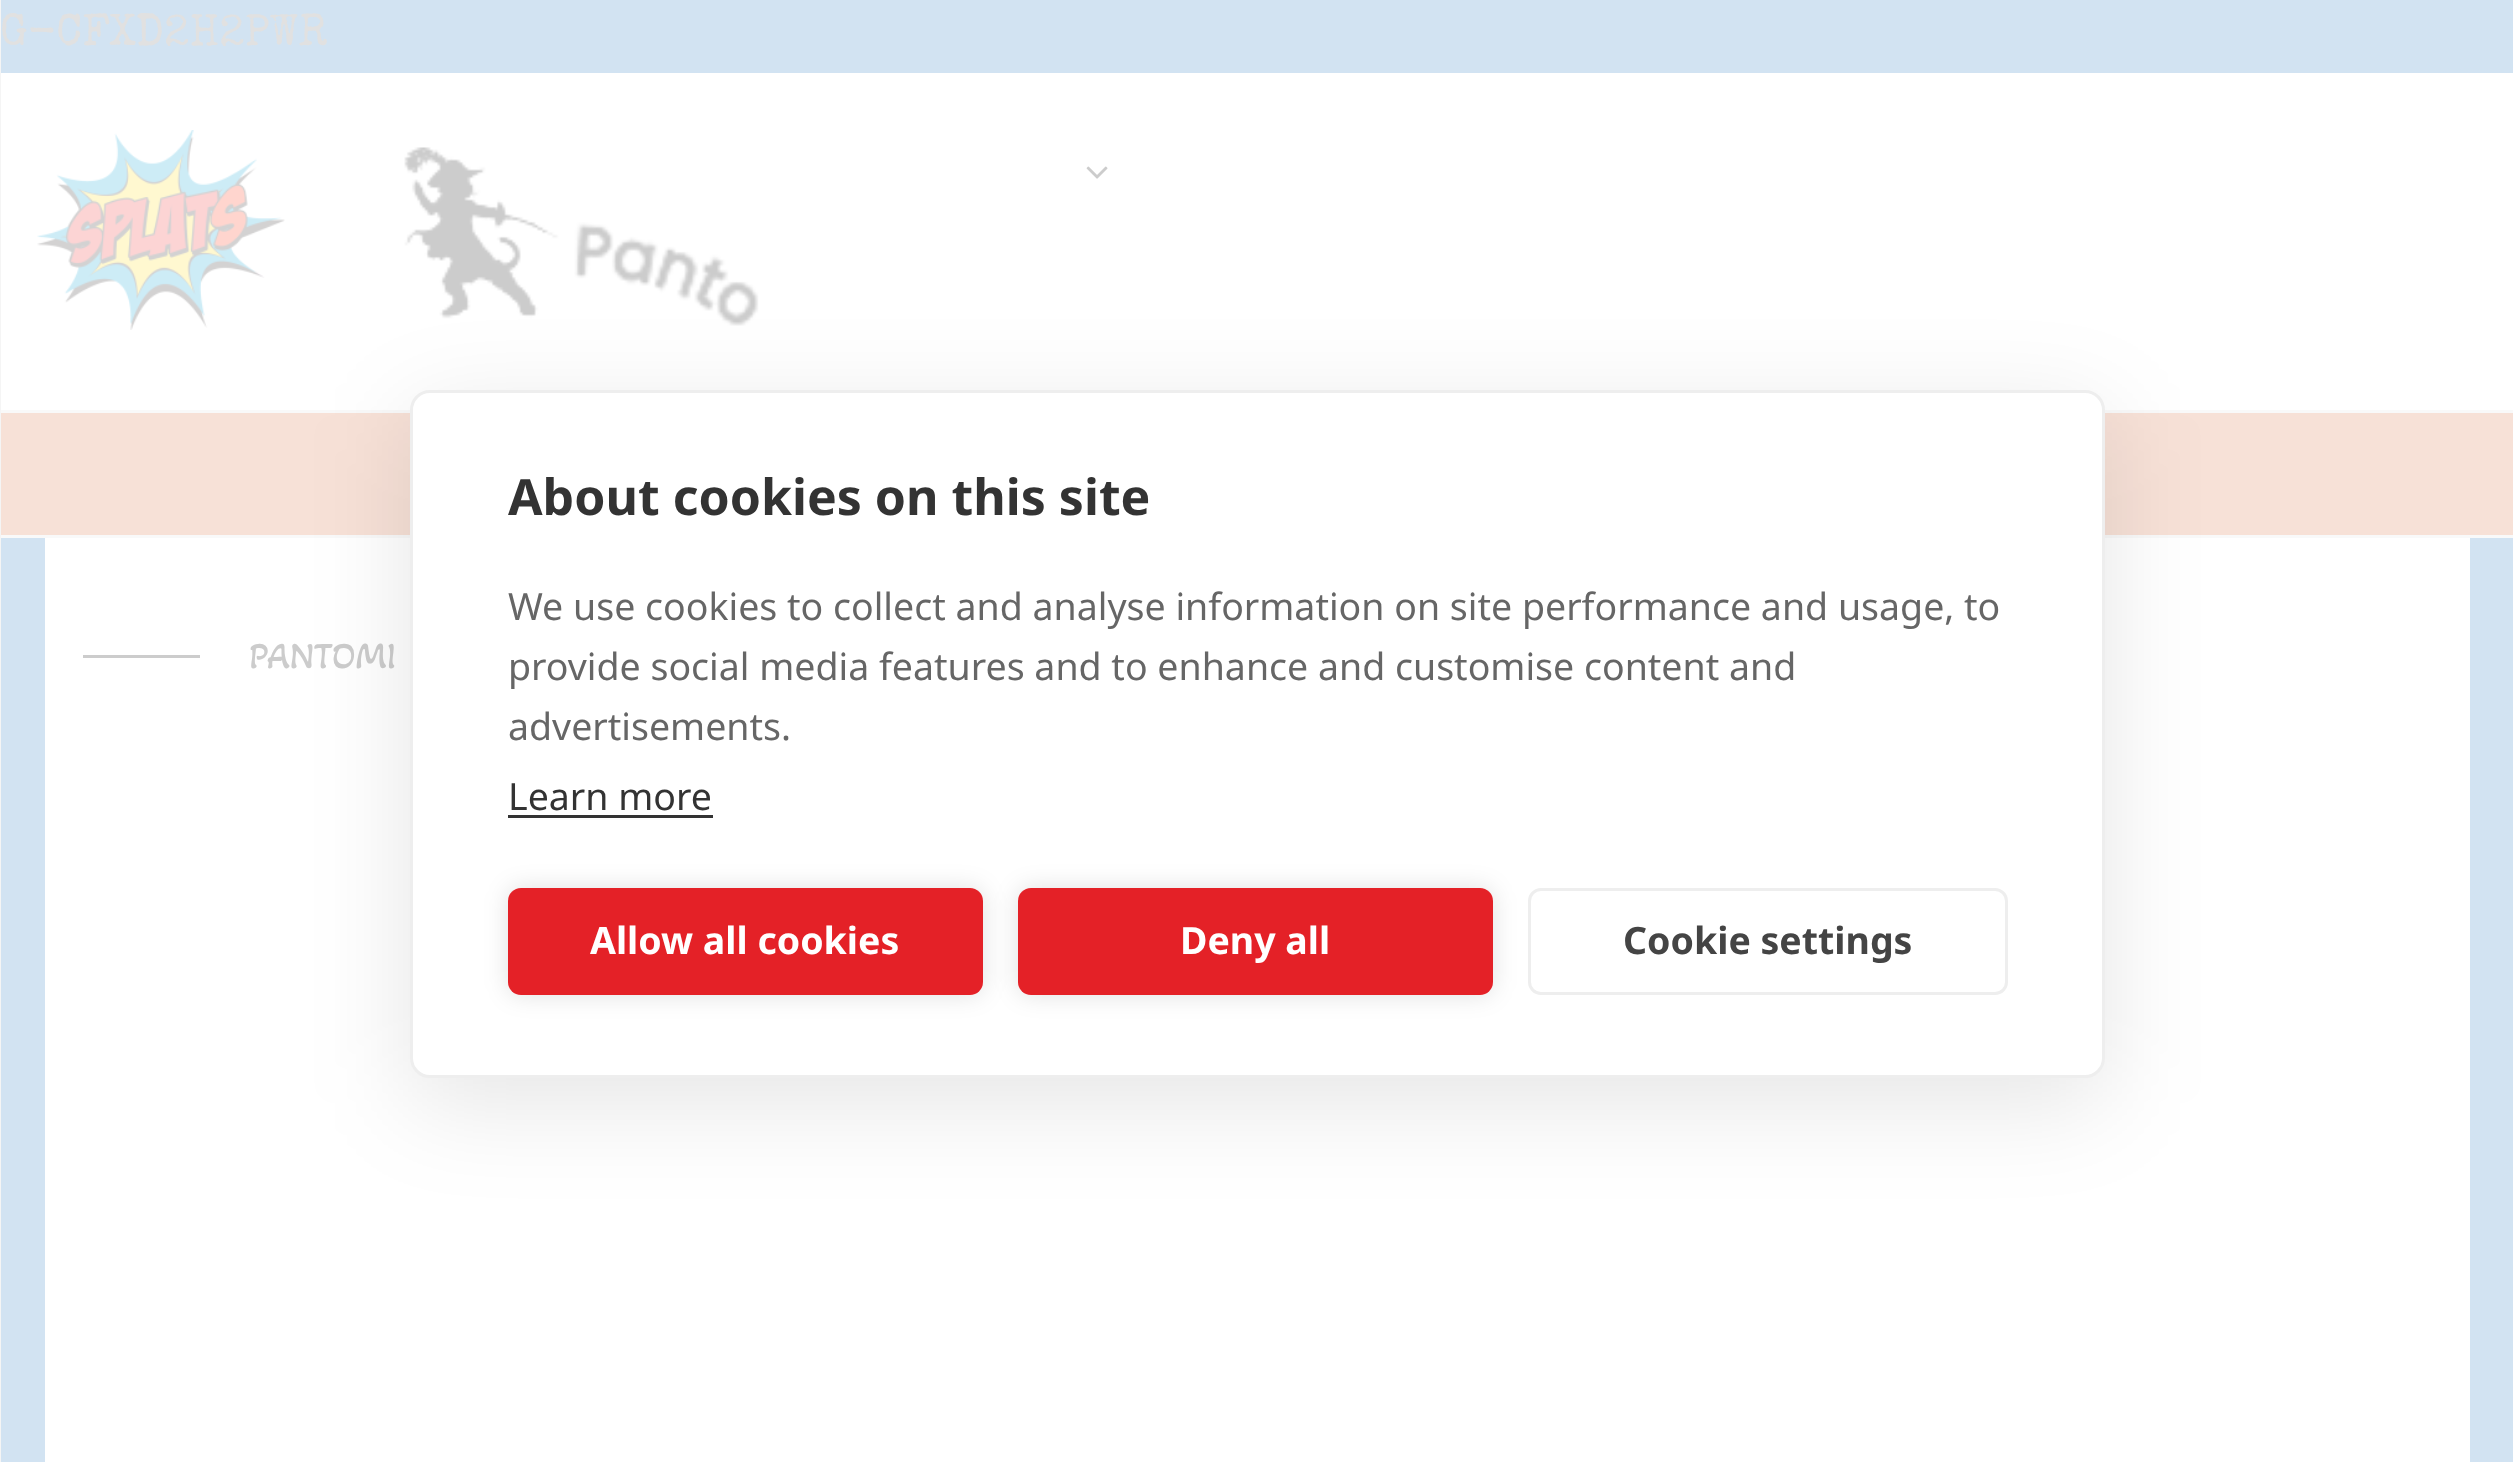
(async () => {
const canvas = document.querySelector("canvas")
canvas.width = 2513
canvas.height = 1462
const c = canvas.getContext("2d")
c.miterLimit = 4
c.fontKerning = "normal"
function T(s,x,y){c.fillText(s,x,y)}
function R(x,y,w,h){c.fillRect(x,y,w,h)}
function Q(x,y,w,h,r){c.beginPath();c.roundRect(x,y,w,h,r);c.fill()}
async function I(src,x,y,w,h){const img=new Image();img.src=src;await img.decode();c.drawImage(img,x,y,w,h)}
let path
c.fillStyle="#d2e3f2"
R(0,0,2513,1462)
c.fillStyle="#f9f9f9"
R(0,410,2513,3)
R(0,535,2513,3)
c.fillStyle="#f5f5f5"
R(0,0,1,1462)
c.font="45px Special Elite"
c.fillStyle="#e1e1e1"
T("G-CFXD2H2PWR",0,45)
c.fillStyle="#fff"
R(1,73,2512,337)
await I("1.png",37,130,248,200)
await I("2.png",404,147,355,179)
await I("3.png",1086,166,22,13)
c.fillStyle="#f7e1d7"
R(1,413,2512,122)
c.fillStyle="#fff"
R(45,538,2425,924)
c.fillStyle="#ccc"
R(83,655,117,3)
c.font="37.5px Akaya Kanadaka"
T("PANTOMI",249,668)
c.fillStyle="#0000001a"
c.filter="blur(50px)"
c.beginPath()
c.roundRect(410,415,1695,688,20)
c.fill()
c.filter="none"
c.fillStyle="#fff"
c.beginPath()
c.roundRect(411.5,391.5,1692,685,18.5)
c.fill()
c.strokeStyle="#eee"
c.lineWidth=3
c.stroke()
c.font="bold 50px Noto Sans"
c.fillStyle="#333"
T("About cookies on this site",508,515)
c.font="37.5px Noto Sans"
c.fillStyle="#666"
T("We use cookies to collect and analyse information on site performance and usage, to",508,620)
T("provide social media features and to enhance and customise content and",508,680)
T("advertisements.",508,740)
c.fillStyle="#333"
T("Learn more",508,810)
R(508,815,205,3)
c.save()
path = new Path2D("M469 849h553v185h-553zm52 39h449c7 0 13 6 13 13v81c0 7-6 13-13 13h-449c-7 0-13-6-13-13v-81c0-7 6-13 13-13z")
c.clip(path,"evenodd")
c.fillStyle="#0000001f"
c.filter="blur(12.5px)"
c.beginPath()
c.roundRect(508,888,475,107,13)
c.fill()
c.filter="none"
c.restore()
c.fillStyle="#e42127"
Q(508,888,475,107,13)
c.font="bold 37.5px Noto Sans"
c.fillStyle="#fff"
T("Allow all cookies",590,954)
c.save()
path = new Path2D("M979 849h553v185h-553zm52 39h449c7 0 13 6 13 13v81c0 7-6 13-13 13h-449c-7 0-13-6-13-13v-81c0-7 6-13 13-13z")
c.clip(path,"evenodd")
c.fillStyle="#0000001f"
c.filter="blur(12.5px)"
c.beginPath()
c.roundRect(1018,888,475,107,13)
c.fill()
c.filter="none"
c.restore()
c.fillStyle="#e42127"
Q(1018,888,475,107,13)
c.fillStyle="#fff"
T("Deny all",1180,954)
c.beginPath()
c.roundRect(1529.5,889.5,477,104,11.5)
c.stroke()
c.fillStyle="#444"
T("Cookie settings",1623,954)
})()
